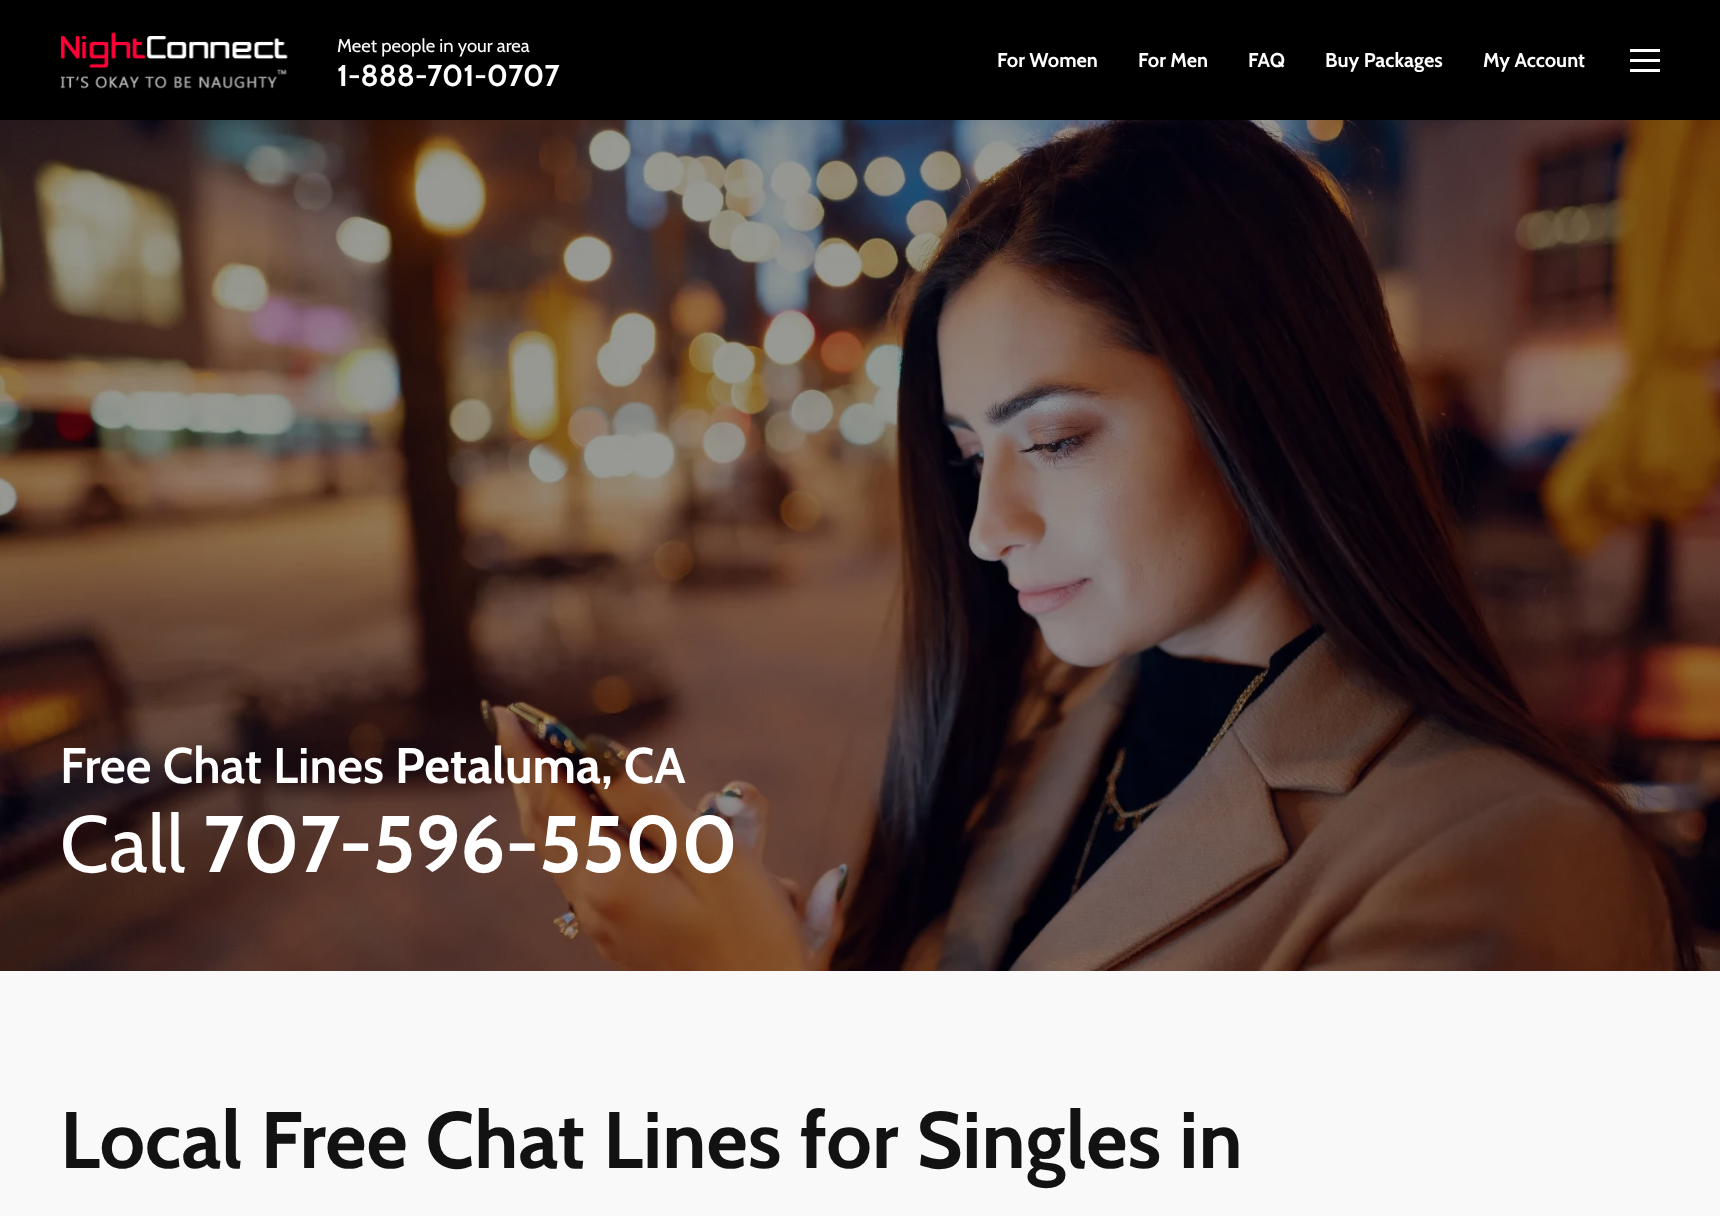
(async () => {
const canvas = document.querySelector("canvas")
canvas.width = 1720
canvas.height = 1216
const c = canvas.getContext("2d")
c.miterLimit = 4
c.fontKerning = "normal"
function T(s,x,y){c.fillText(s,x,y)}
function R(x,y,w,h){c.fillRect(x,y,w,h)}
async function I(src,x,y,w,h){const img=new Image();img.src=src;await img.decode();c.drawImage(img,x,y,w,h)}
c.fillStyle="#fff"
R(0,0,1720,1216)
c.fillStyle="#000"
R(0,0,1720,120)
await I("1.png",60,32,228,57)
c.font="18.5px Cabin"
c.fillStyle="#fff"
T("Meet people in your area",337,52)
c.font="bold 30px Cabin"
T("1-888-701-0707",337,86)
c.font="bold 20px Cabin"
T("For Women",997,67)
T("For Men",1138,67)
T("FAQ",1248,67)
T("Buy Packages",1325,67)
T("My Account",1483,67)
R(1630,59,30,3)
R(1630,49,30,3)
R(1630,69,30,3)
await I("2.png",0,120,1720,851)
c.font="600 50px Cabin"
T("Free Chat Lines",60,783)
c.font="bold 50px Cabin"
T("Petaluma, CA",395,783)
c.font="80px Cabin"
T("Call",60,872)
c.font="bold 80px Cabin"
T("707-596-5500",203,872)
c.fillStyle="#f9f9f9"
R(0,971,1720,245)
c.fillStyle="#121212"
T("Local Free Chat Lines for Singles in",60,1168)
})()
